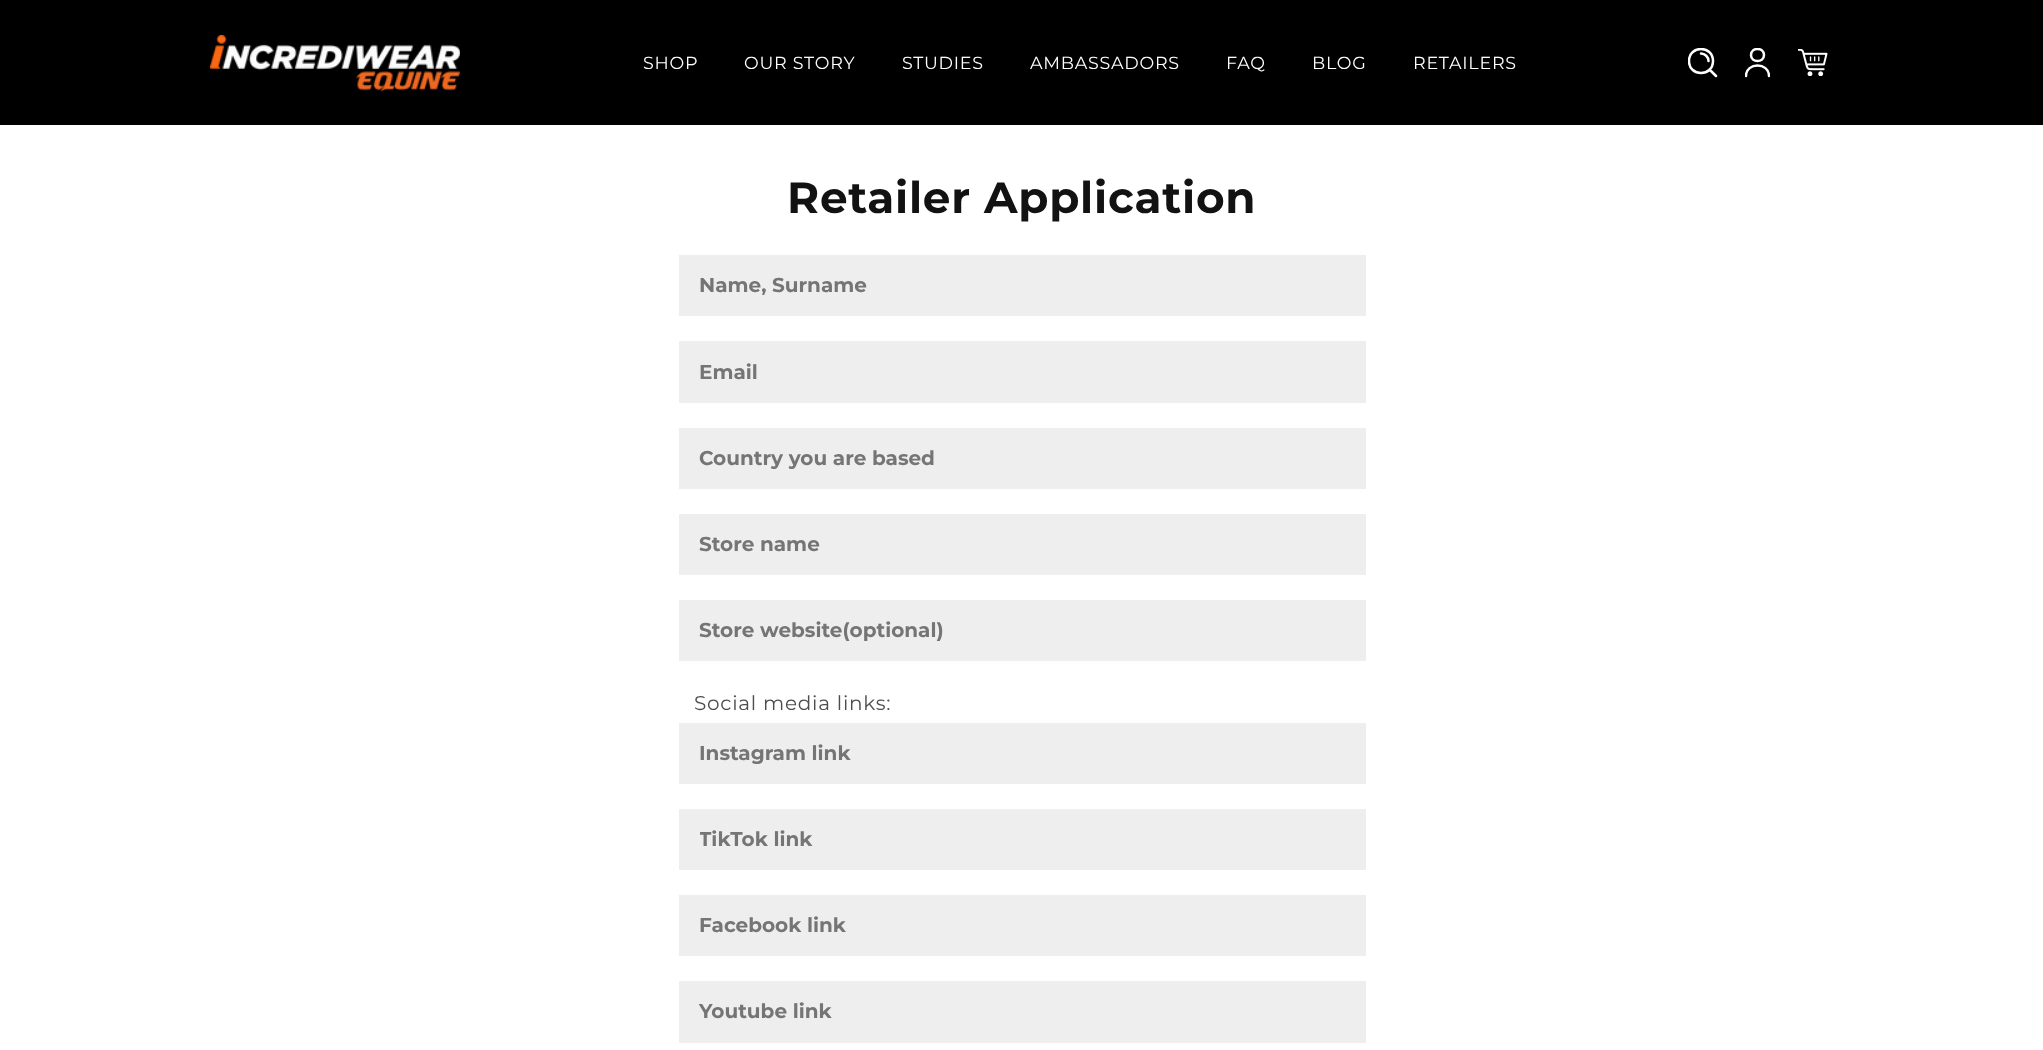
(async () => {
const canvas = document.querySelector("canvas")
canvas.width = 2043
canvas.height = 1050
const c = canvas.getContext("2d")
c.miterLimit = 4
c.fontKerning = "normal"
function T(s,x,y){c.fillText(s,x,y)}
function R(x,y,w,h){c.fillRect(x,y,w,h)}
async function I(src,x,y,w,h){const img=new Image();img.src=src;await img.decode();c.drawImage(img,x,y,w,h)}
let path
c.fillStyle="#fff"
R(0,0,2043,1050)
c.fillStyle="#000"
R(0,0,2043,125)
await I("1.png",210,35,250,57)
c.letterSpacing="0.75px"
c.font="17.5px Montserrat"
c.fillStyle="#fff"
T("SHOP",643,69)
T("OUR STORY",744,69)
T("STUDIES",902,69)
T("AMBASSADORS",1030,69)
T("FAQ",1226,69)
T("BLOG",1312,69)
T("RETAILERS",1413,69)
c.save()
c.beginPath()
c.rect(1688,48,30,30)
c.clip()
path = new Path2D("M1701 53.5c4 0 7.5 3.5 7.5 7.5m1 8.5l6.5 6.5m-3-15c0 16-24 16-24 0c0-16 24-16 24 0z")
c.strokeStyle="#fff"
c.lineWidth=2.5
c.lineCap="round"
c.lineJoin="round"
c.stroke(path)
c.restore()
c.save()
c.beginPath()
c.rect(1745,48,25,30)
c.clip()
path = new Path2D("M1746 76c0-14 23-14 23 0m-5-21c0 8-13 8-13 0c0-8 13-8 13 0z")
c.strokeStyle="#fff"
c.lineWidth=2.5
c.lineCap="round"
c.lineJoin="round"
c.stroke(path)
c.restore()
await I("2.png",1798,49,30,27)
c.font="bold 43.75px Montserrat"
c.fillStyle="#121212"
T("Retailer Application",787,213)
c.fillStyle="#eee"
R(679,255,687,61)
c.letterSpacing="0px"
c.font="bold 20px Montserrat"
c.fillStyle="#757575"
T("Name, Surname",699,292)
c.fillStyle="#eee"
R(679,341,687,62)
c.fillStyle="#757575"
T("Email",699,379)
c.fillStyle="#eee"
R(679,428,687,61)
c.fillStyle="#757575"
T("Country you are based",699,465)
c.fillStyle="#eee"
R(679,514,687,61)
c.fillStyle="#757575"
T("Store name",699,551)
c.fillStyle="#eee"
R(679,600,687,61)
c.fillStyle="#757575"
T("Store website(optional)",699,637)
c.letterSpacing="0.75px"
c.font="20px Montserrat"
c.fillStyle="#4d4d4d"
T("Social media links:",694,710)
c.fillStyle="#eee"
R(679,723,687,61)
c.letterSpacing="0px"
c.font="bold 20px Montserrat"
c.fillStyle="#757575"
T("Instagram link",699,760)
c.fillStyle="#eee"
R(679,809,687,61)
c.save()
c.beginPath()
c.rect(700,828,304,23)
c.clip()
c.fillStyle="#757575"
T("TikTok link",699,846)
c.restore()
R(679,895,687,61)
c.fillStyle="#757575"
T("Facebook link",699,932)
c.fillStyle="#eee"
R(679,981,687,62)
c.fillStyle="#757575"
T("Youtube link",699,1018)
})()
